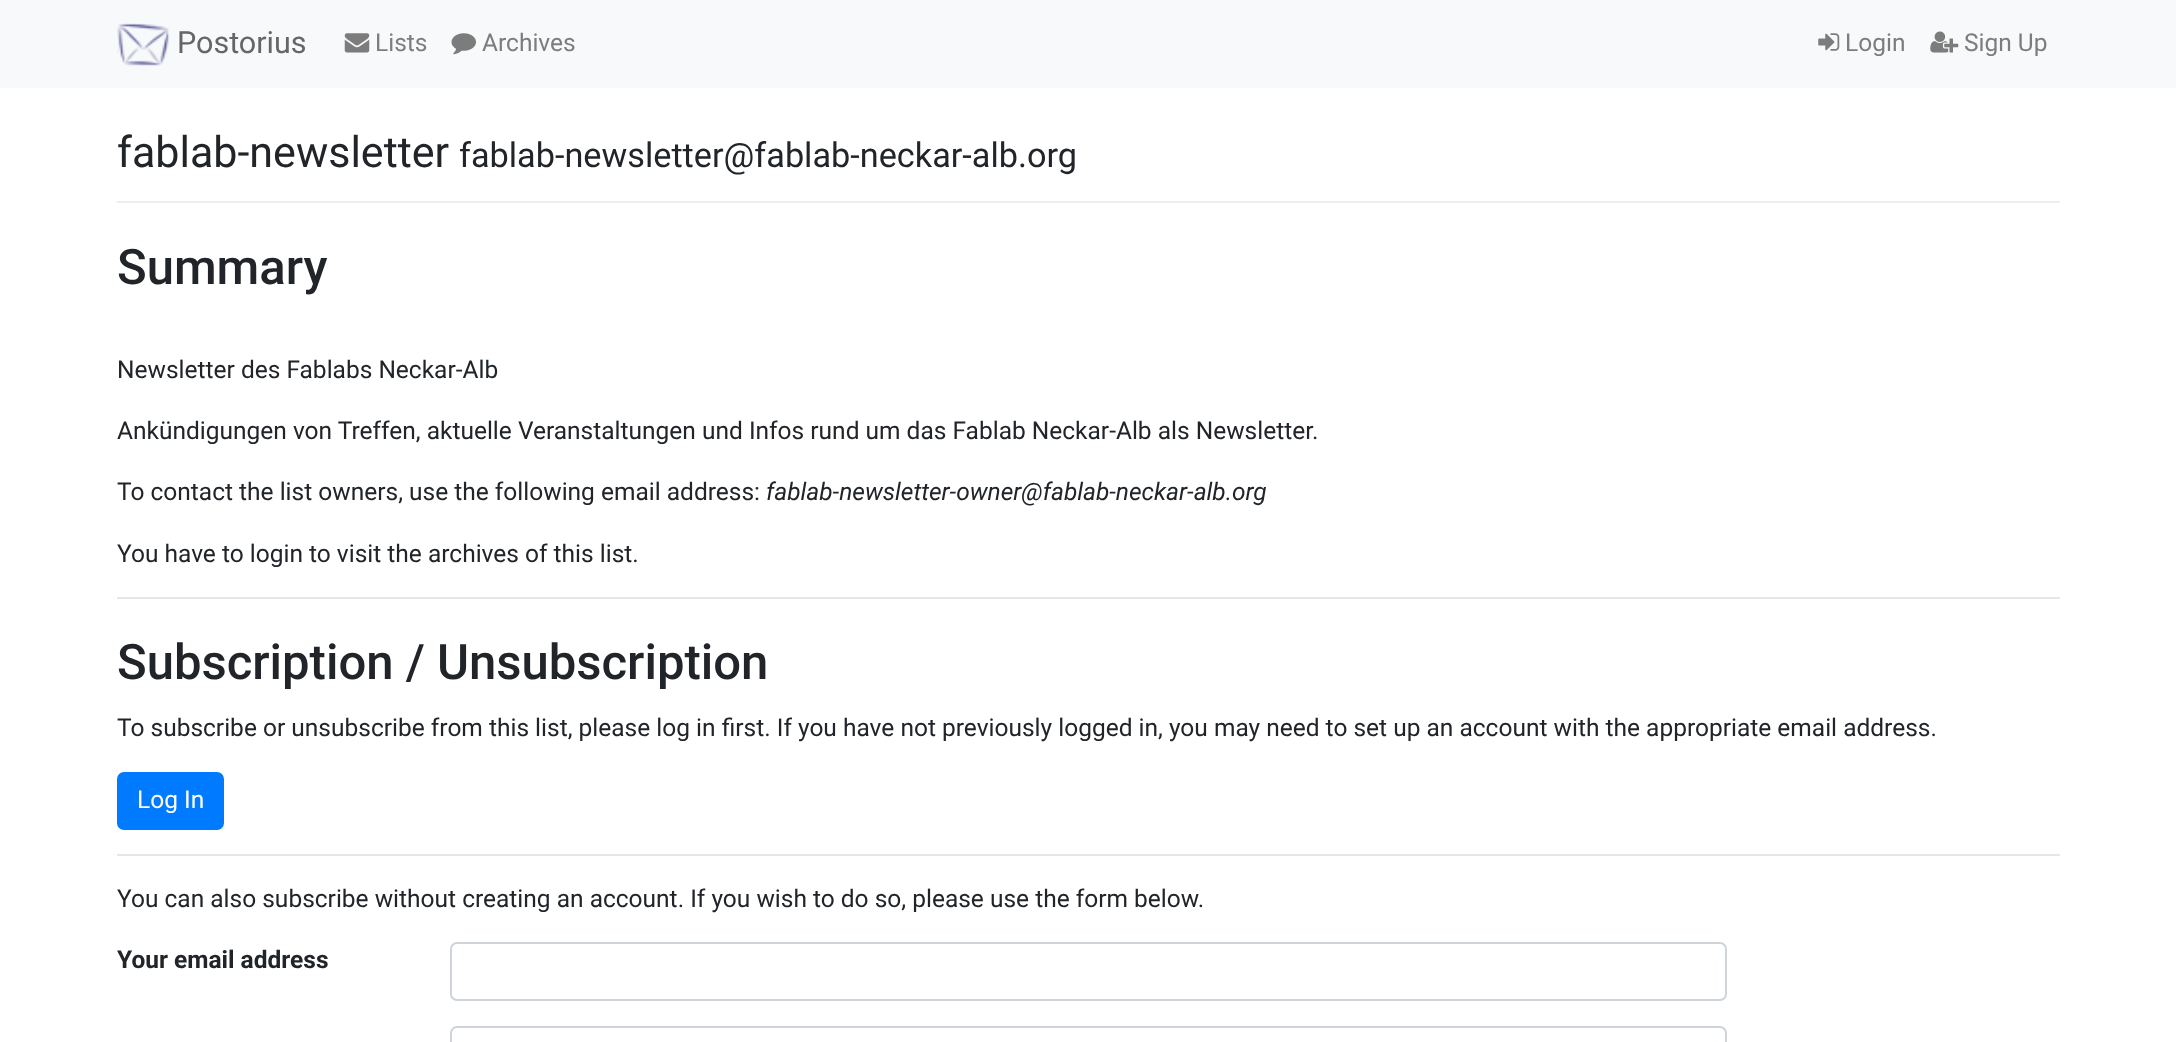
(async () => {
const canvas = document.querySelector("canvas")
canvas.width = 2176
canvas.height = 1042
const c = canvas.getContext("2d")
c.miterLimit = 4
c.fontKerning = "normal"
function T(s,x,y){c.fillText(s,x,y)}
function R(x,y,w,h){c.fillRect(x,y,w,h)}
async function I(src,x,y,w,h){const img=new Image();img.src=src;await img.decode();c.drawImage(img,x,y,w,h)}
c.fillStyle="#fff"
R(0,0,2176,1042)
c.fillStyle="#f8f9fa"
R(0,0,2176,88)
await I("1.png",117,23,53,43)
c.font="30.5px Roboto"
c.fillStyle="#666"
T("Postorius",177,53)
await I("2.png",344,33,26,20)
c.font="24.5px Roboto"
c.fillStyle="#7c7d7d"
T("Lists",375,51)
await I("3.png",451,33,25,22)
T("Archives",482,51)
await I("4.png",1818,33,22,18)
T("Login",1845,51)
await I("5.png",1930,31,29,22)
T("Sign Up",1964,51)
c.fillStyle="#eee"
R(117,201,1943,2)
c.font="43px Roboto"
c.fillStyle="#212529"
T("fablab-newsletter",117,167)
c.font="34.25px Roboto"
T("fablab-newsletter@fablab-neckar-alb.org",459,167)
c.font="500 49px Roboto"
T("Summary",117,284)
c.font="24.5px Roboto"
T("Newsletter des Fablabs Neckar-Alb",117,378)
T("Ankündigungen von Treffen, aktuelle Veranstaltungen und Infos rund um das Fablab Neckar-Alb als Newsletter.",117,439)
T("To contact the list owners, use the following email address:",117,500)
c.font="italic 24.5px Roboto"
T("fablab-newsletter-owner@fablab-neckar-alb.org",766,500)
c.font="24.5px Roboto"
T("You have to login to visit the archives of this list.",117,562)
c.fillStyle="#e6e6e6"
R(117,597,1943,2)
c.font="500 49px Roboto"
c.fillStyle="#212529"
T("Subscription / Unsubscription",117,679)
c.font="24.5px Roboto"
T("To subscribe or unsubscribe from this list, please log in first. If you have not previously logged in, you may need to set up an account with the appropriate email address.",117,736)
c.fillStyle="#007bff"
c.beginPath()
c.roundRect(118,773,105,56,6)
c.fill()
c.strokeStyle="#007bff"
c.lineWidth=2
c.stroke()
c.fillStyle="#fff"
T("Log In",137,808)
c.fillStyle="#e6e6e6"
R(117,854,1943,2)
c.fillStyle="#212529"
T("You can also subscribe without creating an account. If you wish to do so, please use the form below.",117,907)
c.font="bold 24.5px Roboto"
T("Your email address",117,968)
c.beginPath()
c.roundRect(451,943,1275,57,6)
c.strokeStyle="#ced4da"
c.stroke()
c.beginPath()
c.roundRect(451,1027,1275,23,6)
c.stroke()
})()
